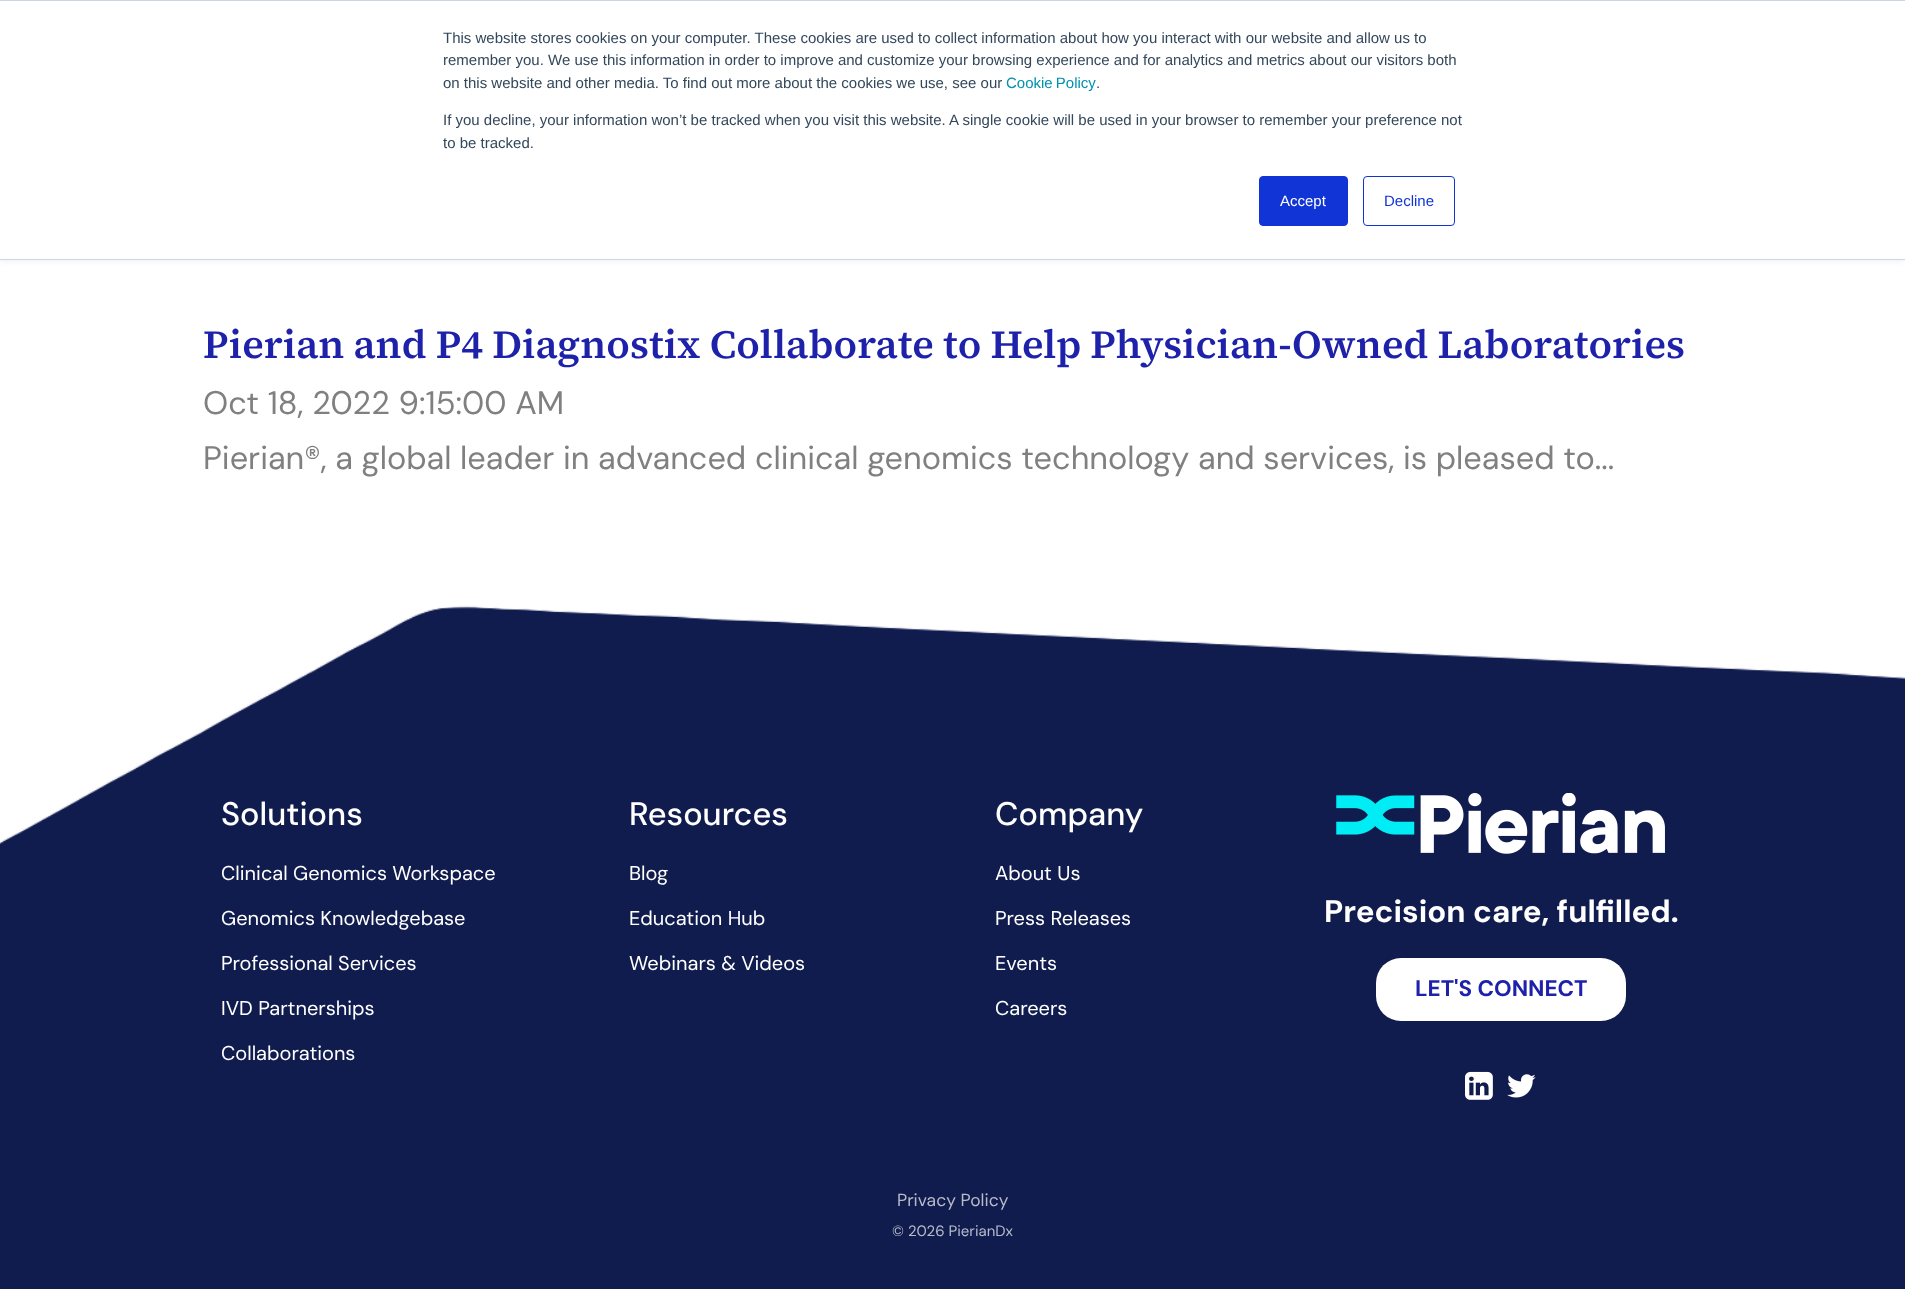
(async () => {
const canvas = document.querySelector("canvas")
canvas.width = 1905
canvas.height = 1289
const c = canvas.getContext("2d")
c.miterLimit = 4
c.fontKerning = "normal"
function T(s,x,y){c.fillText(s,x,y)}
function R(x,y,w,h){c.fillRect(x,y,w,h)}
function Q(x,y,w,h,r){c.beginPath();c.roundRect(x,y,w,h,r);c.fill()}
async function I(src,x,y,w,h){const img=new Image();img.src=src;await img.decode();c.drawImage(img,x,y,w,h)}
c.fillStyle="#fff"
R(0,0,1905,1289)
c.fillStyle="#eaf0f6"
c.filter="blur(3px)"
c.beginPath()
c.rect(0,1,1905,260)
c.fill()
c.filter="none"
c.fillStyle="#fff"
R(0,1,1905,258)
c.fillStyle="#cbd6e2"
R(0,0,1905,1)
R(0,259,1905,1)
c.font="15px Liberation Sans"
c.fillStyle="#33475b"
T("This website stores cookies on your computer. These cookies are used to collect information about how you interact with our website and allow us to",443,43)
T("remember you. We use this information in order to improve and customize your browsing experience and for analytics and metrics about our visitors both",443,65)
T("on this website and other media. To find out more about the cookies we use, see our",443,88)
c.wordSpacing="-1px"
c.fillStyle="#0091ae"
T("Cookie Policy",1006,88)
c.wordSpacing="0px"
c.fillStyle="#33475b"
T(".",1096,88)
T("If you decline, your information won’t be tracked when you visit this website. A single cookie will be used in your browser to remember your preference not",443,125)
T("to be tracked.",443,148)
c.fillStyle="#1134d7"
c.beginPath()
c.roundRect(1259.5,176.5,88,49,3.5)
c.fill()
c.strokeStyle="#1134d7"
c.stroke()
c.fillStyle="#fff"
T("Accept",1280,206)
c.beginPath()
c.roundRect(1363.5,176.5,91,49,3.5)
c.stroke()
c.fillStyle="#1134d7"
T("Decline",1384,206)
c.font="600 40px 'Source Serif 4'"
c.fillStyle="#1e22aa"
T("Pierian and P4 Diagnostix Collaborate to Help Physician-Owned Laboratories",203,358)
c.font="32.5px DM Sans"
c.fillStyle="#808080"
T("Oct 18, 2022 9:15:00 AM",203,414)
T("Pierian®, a global leader in advanced clinical genomics technology and services, is pleased to...",203,469)
c.fillStyle="#111c4e"
R(0,605,1905,684)
await I("1.png",0,605,1905,239)
c.font="500 32.5px DM Sans"
c.fillStyle="#fff"
T("Solutions",221,825)
c.font="20px DM Sans"
T("Clinical Genomics Workspace",221,880)
T("Genomics Knowledgebase",221,925)
T("Professional Services",221,970)
T("IVD Partnerships",221,1015)
T("Collaborations",221,1060)
c.font="500 32.5px DM Sans"
T("Resources",629,825)
c.font="20px DM Sans"
T("Blog",629,880)
T("Education Hub",629,925)
T("Webinars & Videos",629,970)
c.font="500 32.5px DM Sans"
T("Company",995,825)
c.font="20px DM Sans"
T("About Us",995,880)
T("Press Releases",995,925)
T("Events",995,970)
T("Careers",995,1015)
await I("2.png",1336,793,329,61)
c.font="bold 31.25px DM Sans"
T("Precision care, fulfilled.",1324,922)
Q(1376,958,250,63,25)
c.font="bold 22.5px DM Sans"
c.fillStyle="#1e22aa"
T("LET'S CONNECT",1415,996)
await I("3.png",1465,1071,28,29)
await I("4.png",1507,1074,29,24)
c.font="17.5px DM Sans"
c.fillStyle="#b8bbca"
T("Privacy Policy",897,1206)
c.font="15px DM Sans"
T("© 2026 PierianDx",892,1236)
})()
